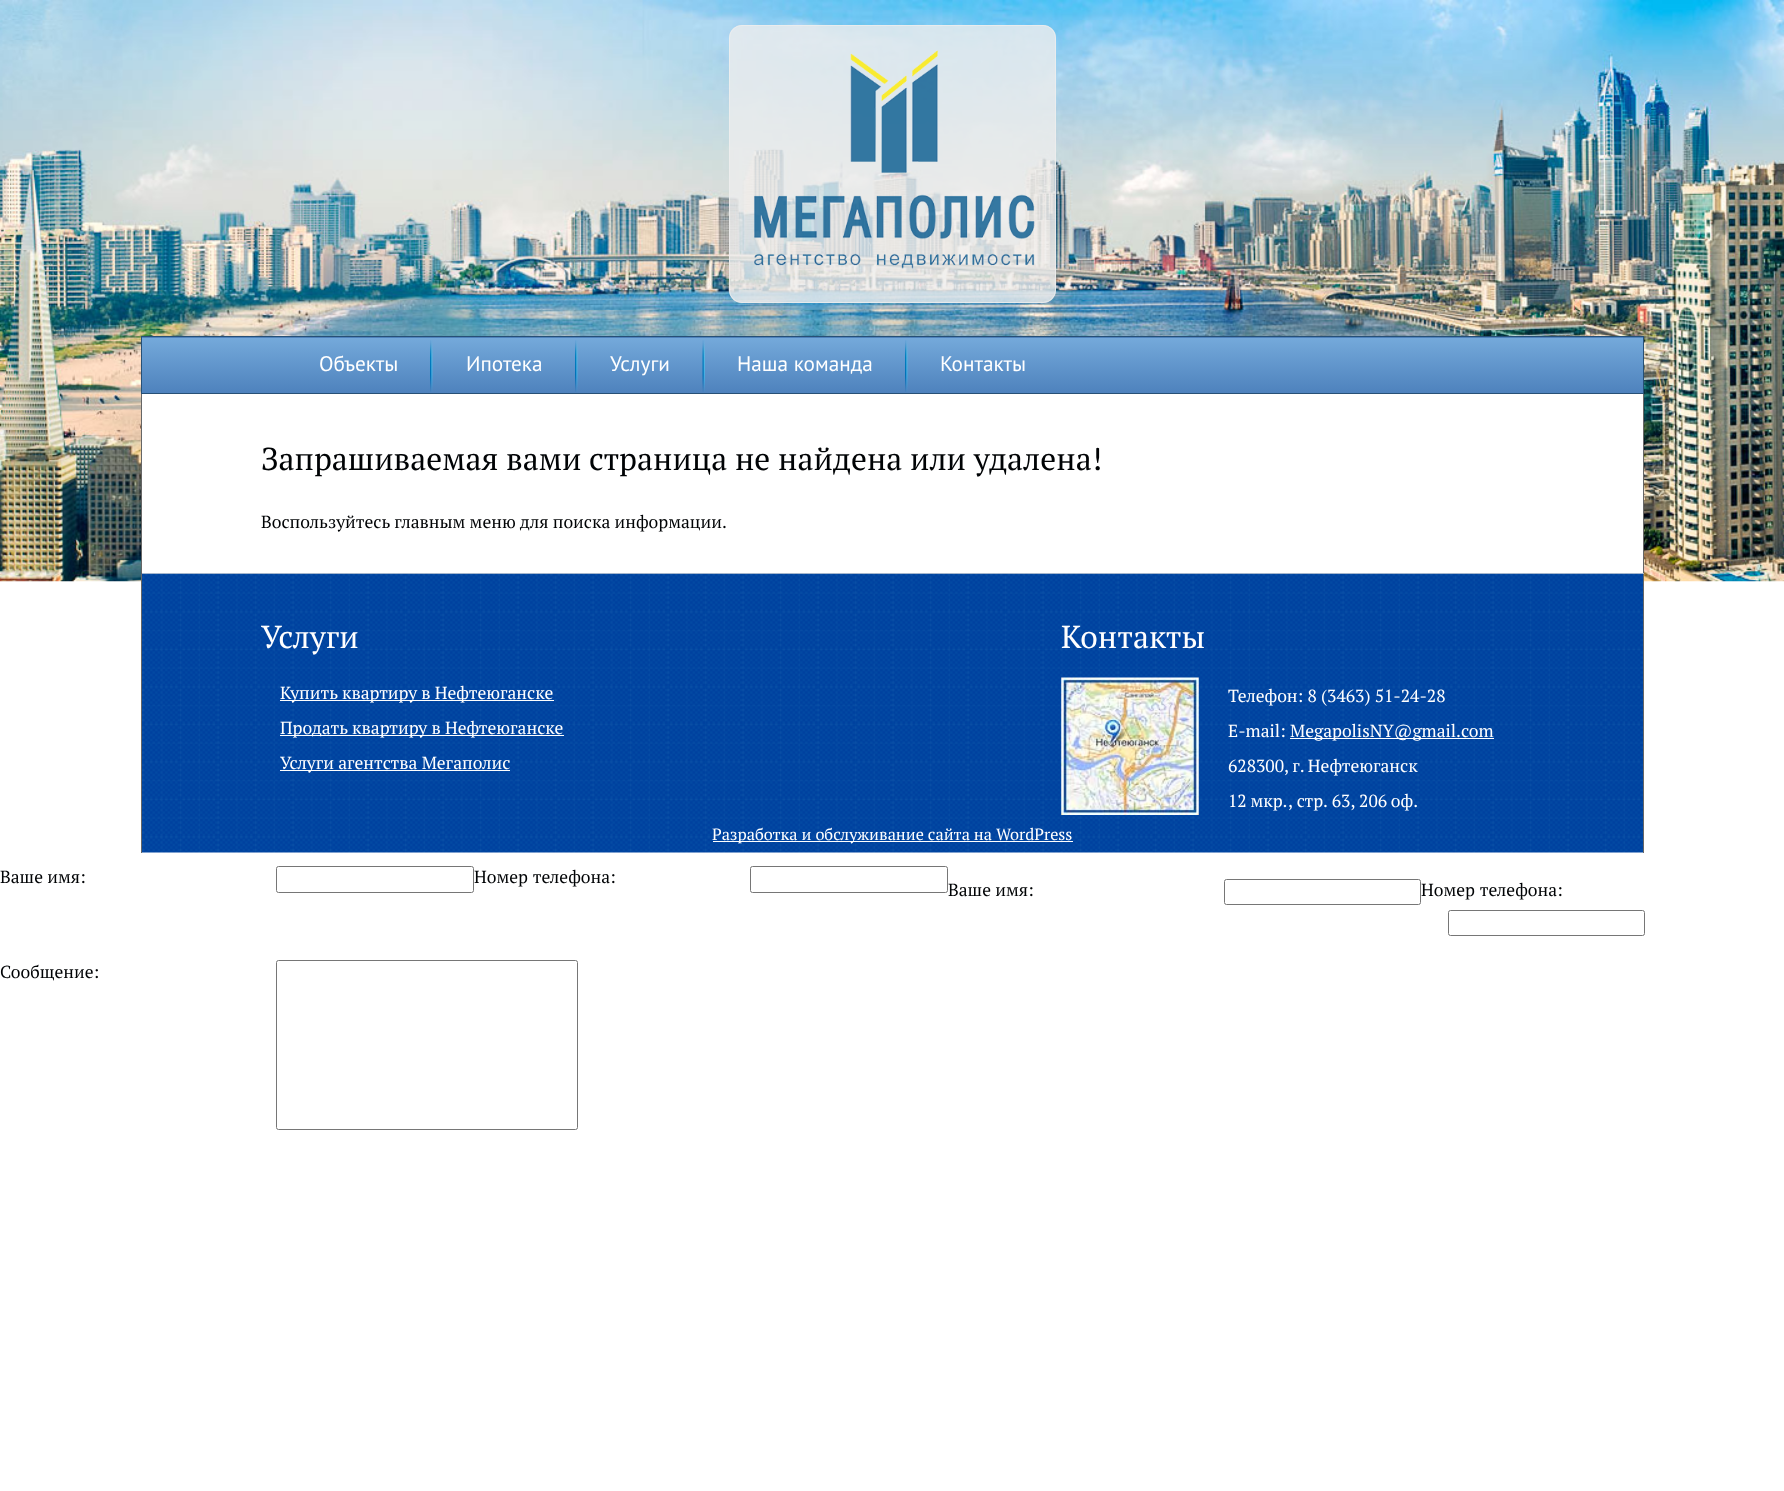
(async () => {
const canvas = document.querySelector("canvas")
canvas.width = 1784
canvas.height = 1491
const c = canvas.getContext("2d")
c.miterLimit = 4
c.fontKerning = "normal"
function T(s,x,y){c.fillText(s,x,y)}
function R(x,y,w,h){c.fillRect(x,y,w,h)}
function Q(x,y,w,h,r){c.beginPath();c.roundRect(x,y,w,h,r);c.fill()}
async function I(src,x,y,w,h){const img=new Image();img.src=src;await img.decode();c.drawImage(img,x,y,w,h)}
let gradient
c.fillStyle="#fff"
R(0,0,1784,1491)
await I("1.png",0,0,1784,582)
c.fillStyle="#eeeeeecc"
Q(729,25,327,278,13)
c.beginPath()
c.roundRect(729.5,25.5,326,277,12.5)
c.strokeStyle="#eeeeeecc"
c.stroke()
await I("2.png",754,50,281,219)
gradient = c.createLinearGradient(893,282,893,338)
gradient.addColorStop(0,"#75aadb")
gradient.addColorStop(1,"#4e82bd")
c.fillStyle = gradient
R(141,337,1503,1)
gradient = c.createLinearGradient(893,337,893,393)
gradient.addColorStop(0,"#75aadb")
gradient.addColorStop(1,"#4e82bd")
c.fillStyle = gradient
R(142,338,1501,55)
c.strokeStyle="#275076"
c.strokeRect(141.5,336.5,1502,57)
c.font="21.25px PT Sans"
c.fillStyle="#fff"
T("Объекты",319,371)
await I("3.png",430,340,3,52)
T("Ипотека",466,371)
await I("3.png",575,340,3,52)
T("Услуги",610,371)
await I("4.png",702,340,3,52)
T("Наша команда",737,371)
await I("3.png",905,340,3,52)
T("Контакты",940,371)
R(142,394,1501,179)
c.fillStyle="#666"
R(1643,394,1,180)
c.fillStyle="#ddd"
R(141,573,1503,1)
c.fillStyle="#666"
R(141,394,1,180)
c.font="31.7px PT Serif"
c.fillStyle="#000305"
T("Запрашиваемая вами страница не найдена или удалена!",261,470)
c.font="17.5px PT Serif"
T("Воспользуйтесь главным меню для поиска информации.",261,528)
await I("5.png",141,573,1503,280)
c.fillStyle="#666"
R(1643,574,1,279)
R(141,574,1,279)
c.font="31.7px PT Serif"
c.fillStyle="#fff"
T("Услуги",261,648)
R(280,700,274,1)
c.font="17.5px PT Serif"
T("Купить квартиру в Нефтеюганске",280,699)
R(280,735,284,1)
T("Продать квартиру в Нефтеюганске",280,734)
R(280,770,230,1)
T("Услуги агентства Мегаполис",280,769)
c.font="31.7px PT Serif"
T("Контакты",1061,648)
await I("6.png",1061,677,138,138)
c.font="17.5px PT Serif"
T("Телефон: 8 (3463) 51-24-28",1228,702)
T("E-mail:",1228,737)
R(1290,738,204,1)
T("MegapolisNY@gmail.com",1290,737)
c.wordSpacing="-1px"
T("628300, г. Нефтеюганск",1228,772)
c.wordSpacing="-0.5px"
T("12 мкр., стр. 63, 206 оф.",1228,807)
R(713,841,360,1)
c.wordSpacing="0px"
c.font="16.25px PT Serif"
T("Разработка и обслуживание сайта на WordPress",712,840)
c.font="17.5px PT Serif"
c.fillStyle="#000305"
T("Ваше имя:",0,883)
c.beginPath()
c.roundRect(276.5,866.5,197,26,2)
c.strokeStyle="#767676"
c.stroke()
c.wordSpacing="1px"
T("Номер телефона:",474,883)
c.beginPath()
c.roundRect(750.5,866.5,197,26,2)
c.stroke()
c.wordSpacing="0px"
T("Ваше имя:",948,896)
c.beginPath()
c.roundRect(1224.5,879.5,196,25,2)
c.stroke()
c.wordSpacing="1px"
T("Номер телефона:",1421,896)
c.beginPath()
c.roundRect(1448.5,910.5,196,25,2)
c.stroke()
c.wordSpacing="0px"
T("Сообщение:",0,978)
c.beginPath()
c.roundRect(276.5,960.5,301,169,2)
c.stroke()
})()
